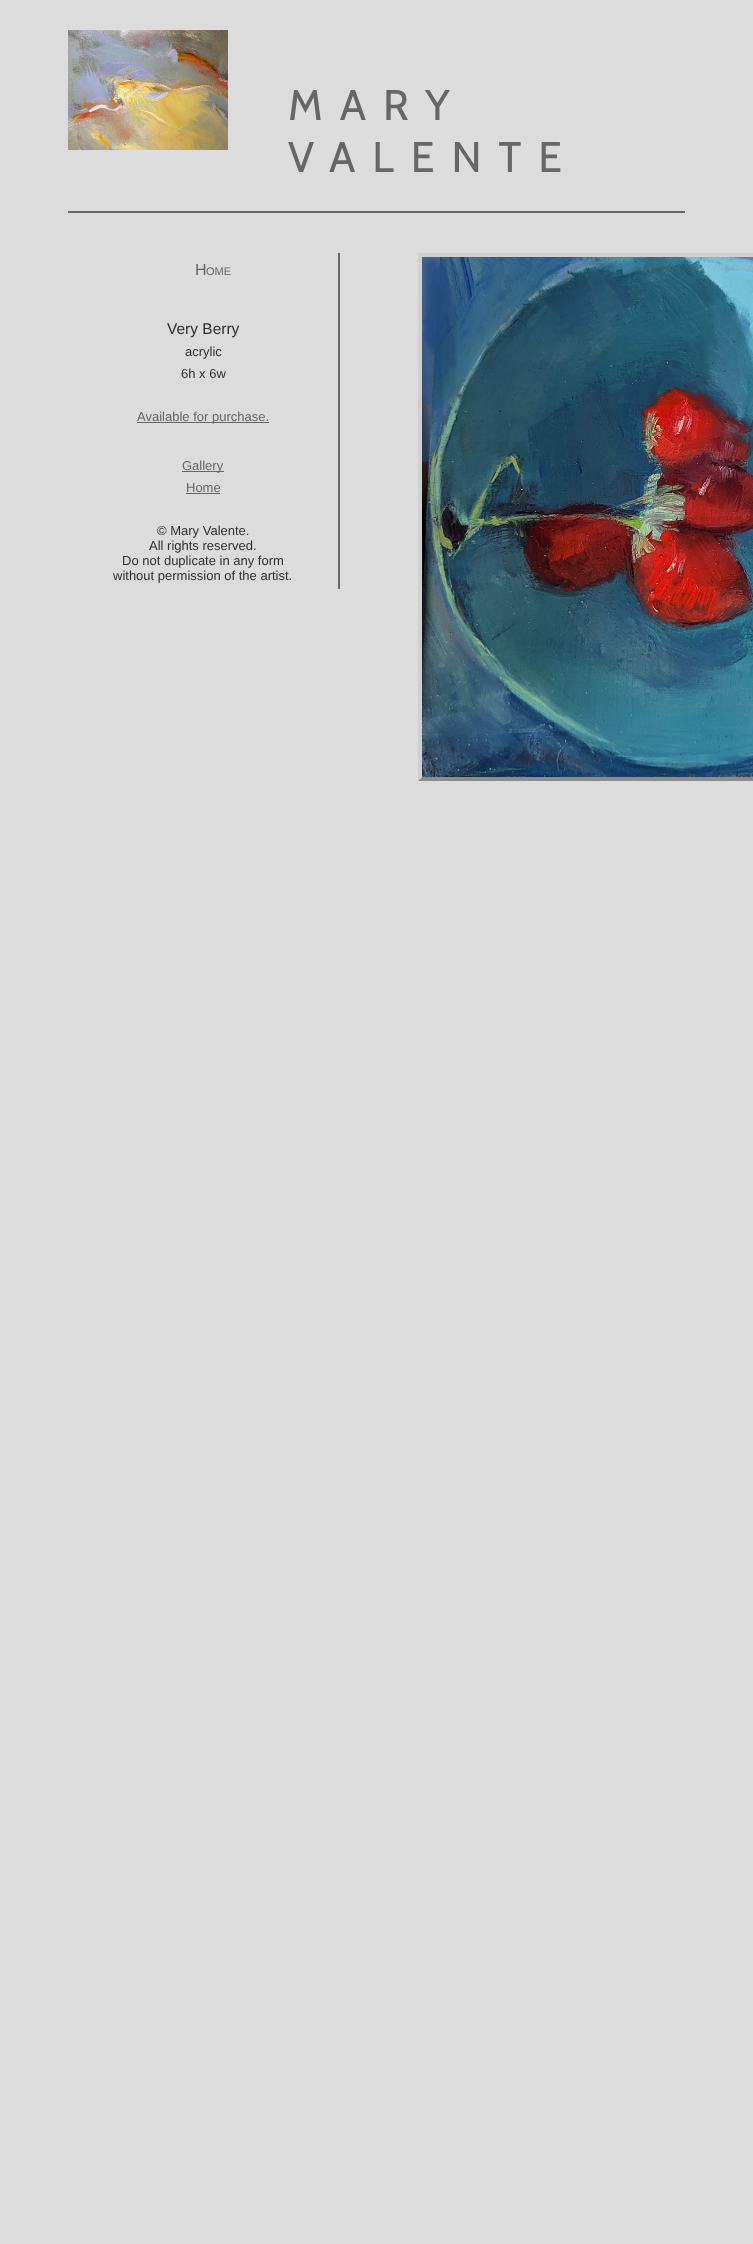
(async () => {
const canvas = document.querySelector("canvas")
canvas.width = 753
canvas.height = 2244
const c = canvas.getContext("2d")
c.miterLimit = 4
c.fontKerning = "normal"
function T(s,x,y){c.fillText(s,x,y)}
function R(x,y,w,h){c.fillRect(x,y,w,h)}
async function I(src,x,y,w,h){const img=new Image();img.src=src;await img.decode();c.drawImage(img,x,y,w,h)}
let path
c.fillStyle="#dcdcdc"
R(0,0,753,2244)
c.fillStyle="#666"
R(68,211,617,2)
await I("1.png",68,30,160,120)
c.letterSpacing="17px"
c.font="42.75px Cabin"
T("MARY",288,120)
T("VALENTE",288,172)
R(338,253,2,336)
c.letterSpacing="0px"
c.font="16px Liberation Sans"
T("H",195,275)
c.font="11px Liberation Sans"
T("OME",206,275)
c.font="15.5px Liberation Sans"
c.fillStyle="#303030"
T("Very Berry",167,334)
c.font="13px Liberation Sans"
T("acrylic",185,356)
T("6h x 6w",181,378)
c.fillStyle="#666"
R(137,422,132,1)
T("Available for purchase.",137,421)
R(182,471,42,1)
T("Gallery",182,470)
T("Home",186,492)
R(186,493,34,1)
c.fillStyle="#303030"
T("© Mary Valente.",157,535)
T("All rights reserved.",149,550)
T("Do not duplicate in any form",122,565)
T("without permission of the artist.",113,580)
c.fillStyle="#d0d0d0"
path = new Path2D("M418 253h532l-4 4h-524z")
c.fill(path)
c.fillStyle="#8b8b8b"
path = new Path2D("M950 781h-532l4-4h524z")
c.fill(path)
c.fillStyle="#d0d0d0"
path = new Path2D("M418 781v-528l4 4v520z")
c.fill(path)
await I("2.png",422,257,331,520)
})()
